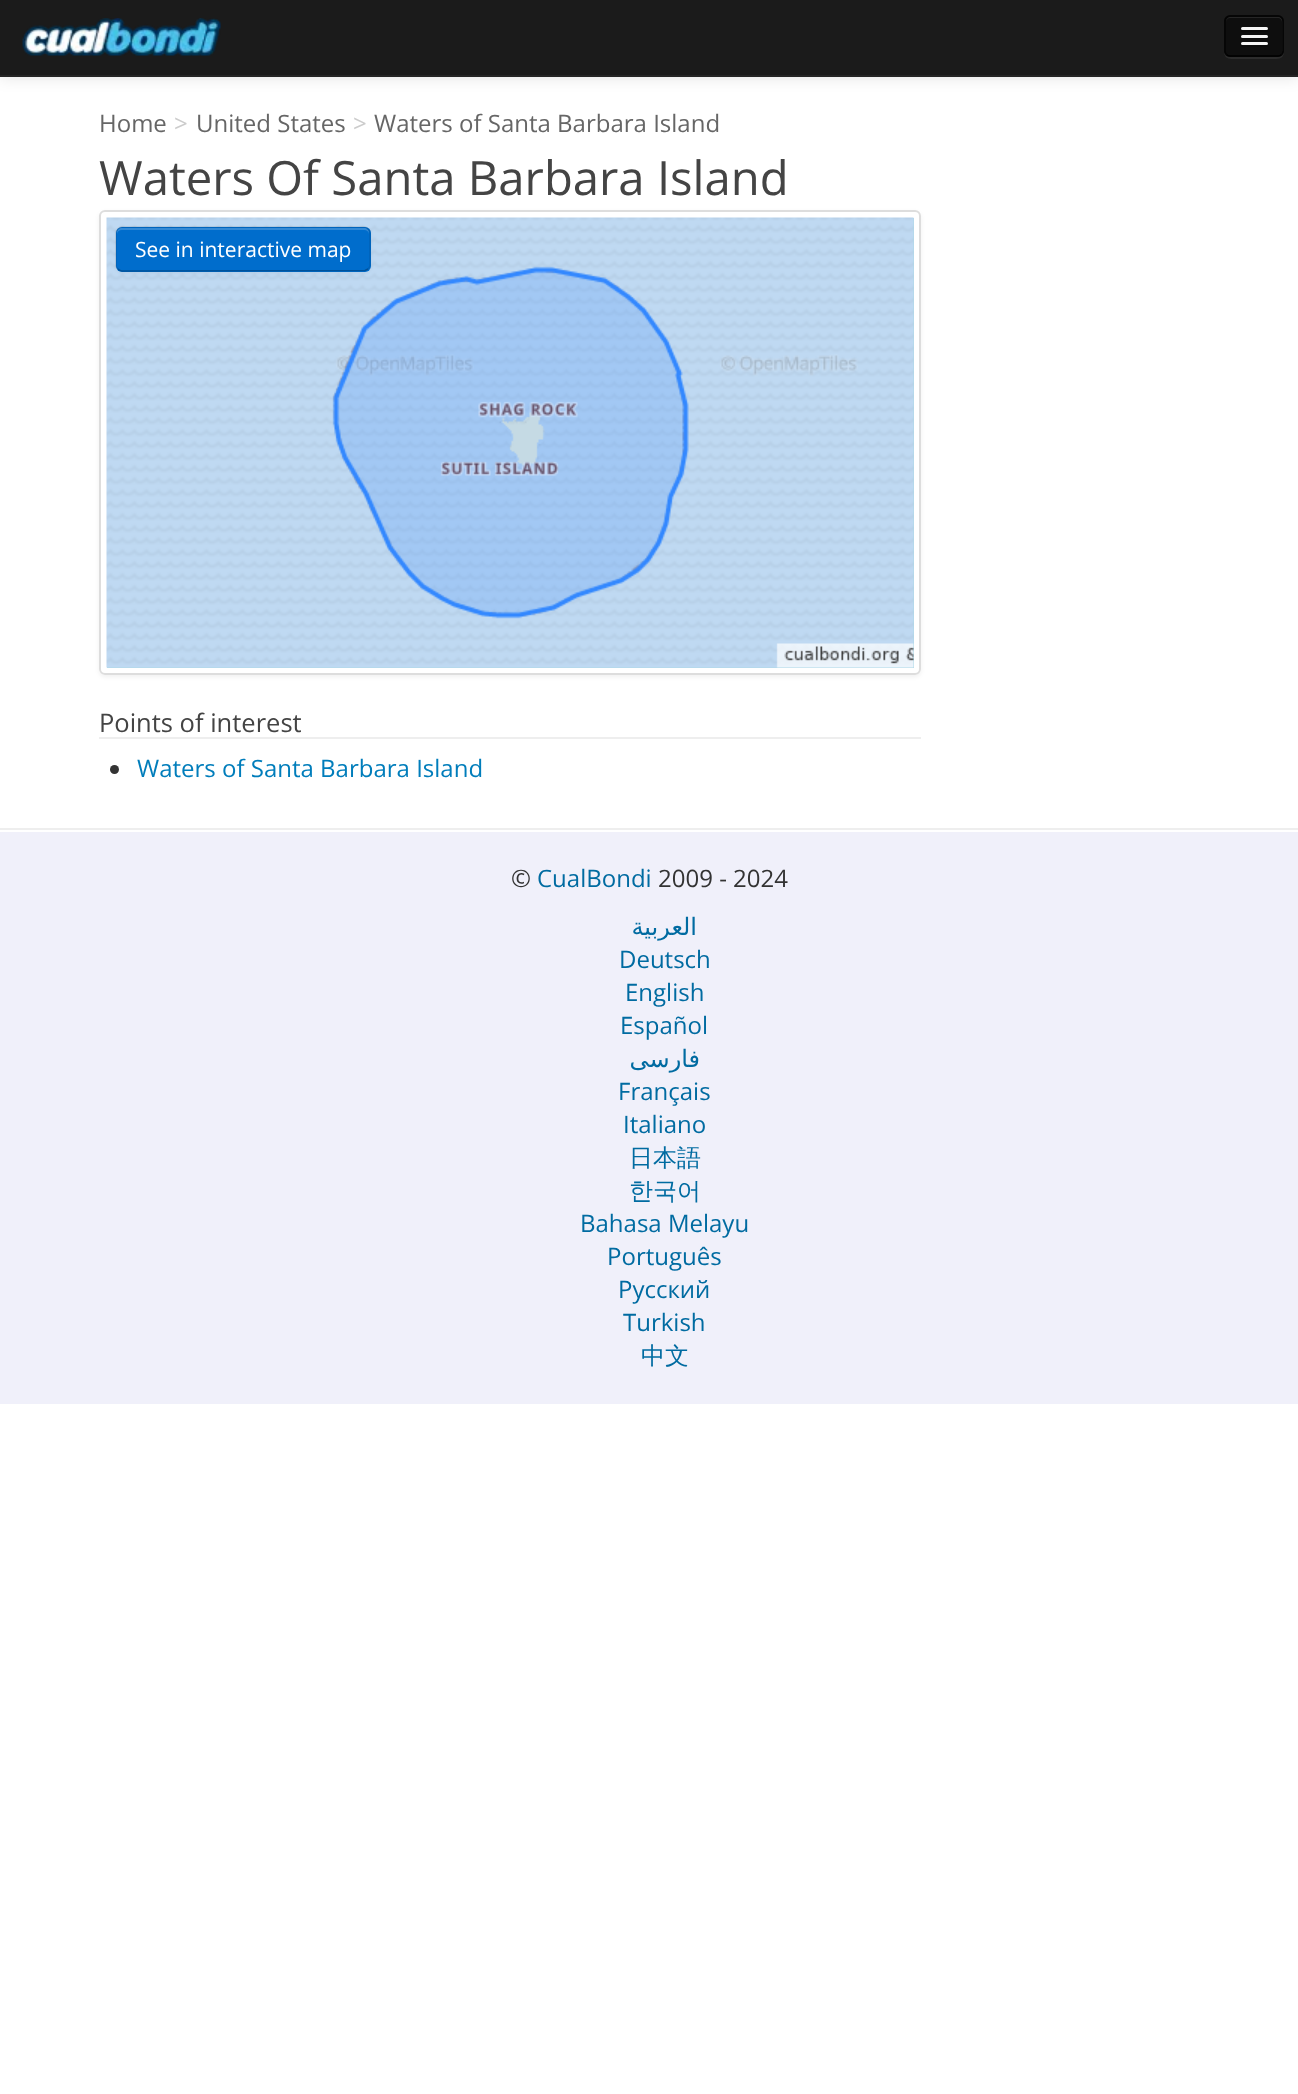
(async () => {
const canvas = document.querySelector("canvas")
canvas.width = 1298
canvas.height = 2094
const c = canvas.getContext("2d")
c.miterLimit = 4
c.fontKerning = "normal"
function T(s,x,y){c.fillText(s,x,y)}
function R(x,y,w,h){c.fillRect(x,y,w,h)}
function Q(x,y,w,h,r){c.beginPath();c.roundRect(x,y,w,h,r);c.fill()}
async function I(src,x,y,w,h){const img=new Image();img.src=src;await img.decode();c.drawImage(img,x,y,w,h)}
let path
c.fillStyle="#fff"
R(0,0,1298,2094)
c.fillStyle="#0000001a"
c.filter="blur(7.5px)"
c.beginPath()
c.rect(0,2,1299,76)
c.fill()
c.filter="none"
c.fillStyle="#1b1b1b"
R(0,0,1298,75)
c.fillStyle="#252525"
R(0,75,1298,2)
await I("1.png",22,18,199,38)
c.fillStyle="#2c2c2c"
path = new Path2D("M1224 51c0 9 6 8 14 8h32c8 0 14 1 14-8c0 3-3 6-6 6h-48c-3 0-6-3-6-6z")
c.fill(path)
c.fillStyle="#0e0e0e"
Q(1224,15,60,42,6)
c.fillStyle="#262626"
path = new Path2D("M1230 18h48c2 0 4 2 4 4v30l-1 3c1-1 2-3 2-4v-29c0-3-2-5-5-5h-47c-3 0-5 2-5 5c0-2 2-4 4-4z")
c.fill(path)
path = new Path2D("M1281.5 54.5c-1 1-2 1.5-3.5 1.5h-48c-1.5 0-2.5-.5-3.5-1.5")
c.strokeStyle="#000"
c.lineWidth=1.5
c.stroke(path)
path = new Path2D("M1226.5 54.5c-1-1-1.5-2-1.5-3.5v-30c0-1.5 .5-2.5 1.5-3.5c1-1 2-1.5 3.5-1.5h48c1.5 0 2.5 .5 3.5 1.5c1 1 1.5 2 1.5 3.5v30c0 1.5-.5 2.5-1.5 3.5")
c.strokeStyle="#040404"
c.stroke(path)
c.fillStyle="#0b0b0b"
path = new Path2D("M1241 30c-1.5 3 5.5 2 5.5 2h20.5c1-.5 1.5-2 .5-3l-1.5 1c-2 .5-24 .5-25 0z")
c.fill(path)
c.fillStyle="#f5f5f5"
Q(1241,27,27,3,1.5)
c.fillStyle="#0b0b0b"
path = new Path2D("M1241 37c-.5 3 5 2 5.5 2h20c1.5 0 2-2 1-2.5l-1 1c-1.5 .5-25 0-25.5-.5z")
c.fill(path)
c.fillStyle="#f5f5f5"
Q(1241,35,27,3,1.5)
c.fillStyle="#0b0b0b"
path = new Path2D("M1241 45c-1.5 3 5.5 2 5.5 2h20.5c1-.5 1.5-2 .5-3l-1.5 1c-2 .5-24 .5-25 0z")
c.fill(path)
c.fillStyle="#f5f5f5"
Q(1241,42,27,3,1.5)
c.font="24px Open Sans"
c.fillStyle="#666"
T("Home",99,132)
c.fillStyle="#ccc"
T(">",174,132)
c.fillStyle="#666"
T("United States",196,132)
c.fillStyle="#ccc"
T(">",353,132)
c.fillStyle="#666"
T("Waters of Santa Barbara Island",374,132)
c.font="47.25px Open Sans"
c.fillStyle="#444"
T("Waters Of Santa Barbara Island",99,195)
c.save()
path = new Path2D("M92 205h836v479h-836zm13 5h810c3.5 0 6 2.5 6 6v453c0 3.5-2.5 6-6 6h-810c-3.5 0-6-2.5-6-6v-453c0-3.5 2.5-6 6-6z")
c.clip(path,"evenodd")
c.fillStyle="#0000000f"
c.filter="blur(2px)"
c.beginPath()
c.roundRect(99,212,822,465,6)
c.fill()
c.filter="none"
c.restore()
c.beginPath()
c.roundRect(100,211,820,463,5)
c.strokeStyle="#ddd"
c.lineWidth=2
c.stroke()
c.fillStyle="#add8e6"
R(107,218,807,450)
await I("2.png",106,217,808,451)
c.fillStyle="#0000000d"
c.filter="blur(1.5px)"
c.beginPath()
c.roundRect(116,228,255,45,6)
c.fill()
c.filter="none"
c.fillStyle="#006dcc"
Q(116,227,255,45,6)
c.fillStyle="#338ad6"
path = new Path2D("M122 230h242c3 0 5 2 5 4v-1c0-3-2-5-5-5h-242c-3 0-5 2-5 5v1c0-2 2-4 5-4z")
c.fill(path)
path = new Path2D("M368 269l-3 1.5l-243.5 .5c-1.5-.5-2.5-1-3.5-2")
c.strokeStyle="#00000040"
c.lineWidth=1.5
c.stroke(path)
path = new Path2D("M118 269c-1-1-2-2-2-3.5v-33c0-1.5 1-2.5 2-3.5c1-1 2-2 3.5-2h243c1.5 0 2.5 1 3.5 2c1 1 2 2 2 3.5v33c0 1.5-1 2.5-2 3.5")
c.strokeStyle="#0000001a"
c.stroke(path)
c.font="21px Open Sans"
c.fillStyle="#fff"
T("See in interactive map",135,257)
c.fillStyle="#eee"
R(99,737,822,2)
c.font="25.5px Open Sans"
c.fillStyle="#444"
T("Points of interest",99,732)
c.fillStyle="#333"
c.beginPath()
c.arc(114.5,769.5,4.5,0,7)
c.fill()
c.font="24px Open Sans"
c.fillStyle="#007dbb"
T("Waters of Santa Barbara Island",137,777)
c.fillStyle="#f0f0fa"
R(0,832,1298,572)
c.fillStyle="#eee"
R(0,828,1298,2)
c.fillStyle="#333"
T("©",511,887)
c.fillStyle="#006ba1"
T("CualBondi",537,887)
c.fillStyle="#333"
T("2009 - 2024",658,887)
c.direction="rtl"
c.font="24px DejaVu Sans"
c.fillStyle="#006ba1"
T("العربية",697,935)
c.direction="ltr"
c.font="24px Open Sans"
T("Deutsch",619,968)
T("English",625,1001)
T("Español",620,1034)
c.direction="rtl"
c.font="24px DejaVu Sans"
T("فارسی",700,1067)
c.direction="ltr"
c.font="24px Open Sans"
T("Français",618,1100)
T("Italiano",623,1133)
c.font="500 24px WenQuanYi Zen Hei"
T("日本語",629,1166)
T("한국어",629,1199)
c.font="24px Open Sans"
T("Bahasa Melayu",580,1232)
T("Português",607,1265)
T("Русский",618,1298)
T("Turkish",623,1331)
c.font="500 24px WenQuanYi Zen Hei"
T("中文",641,1364)
})()
